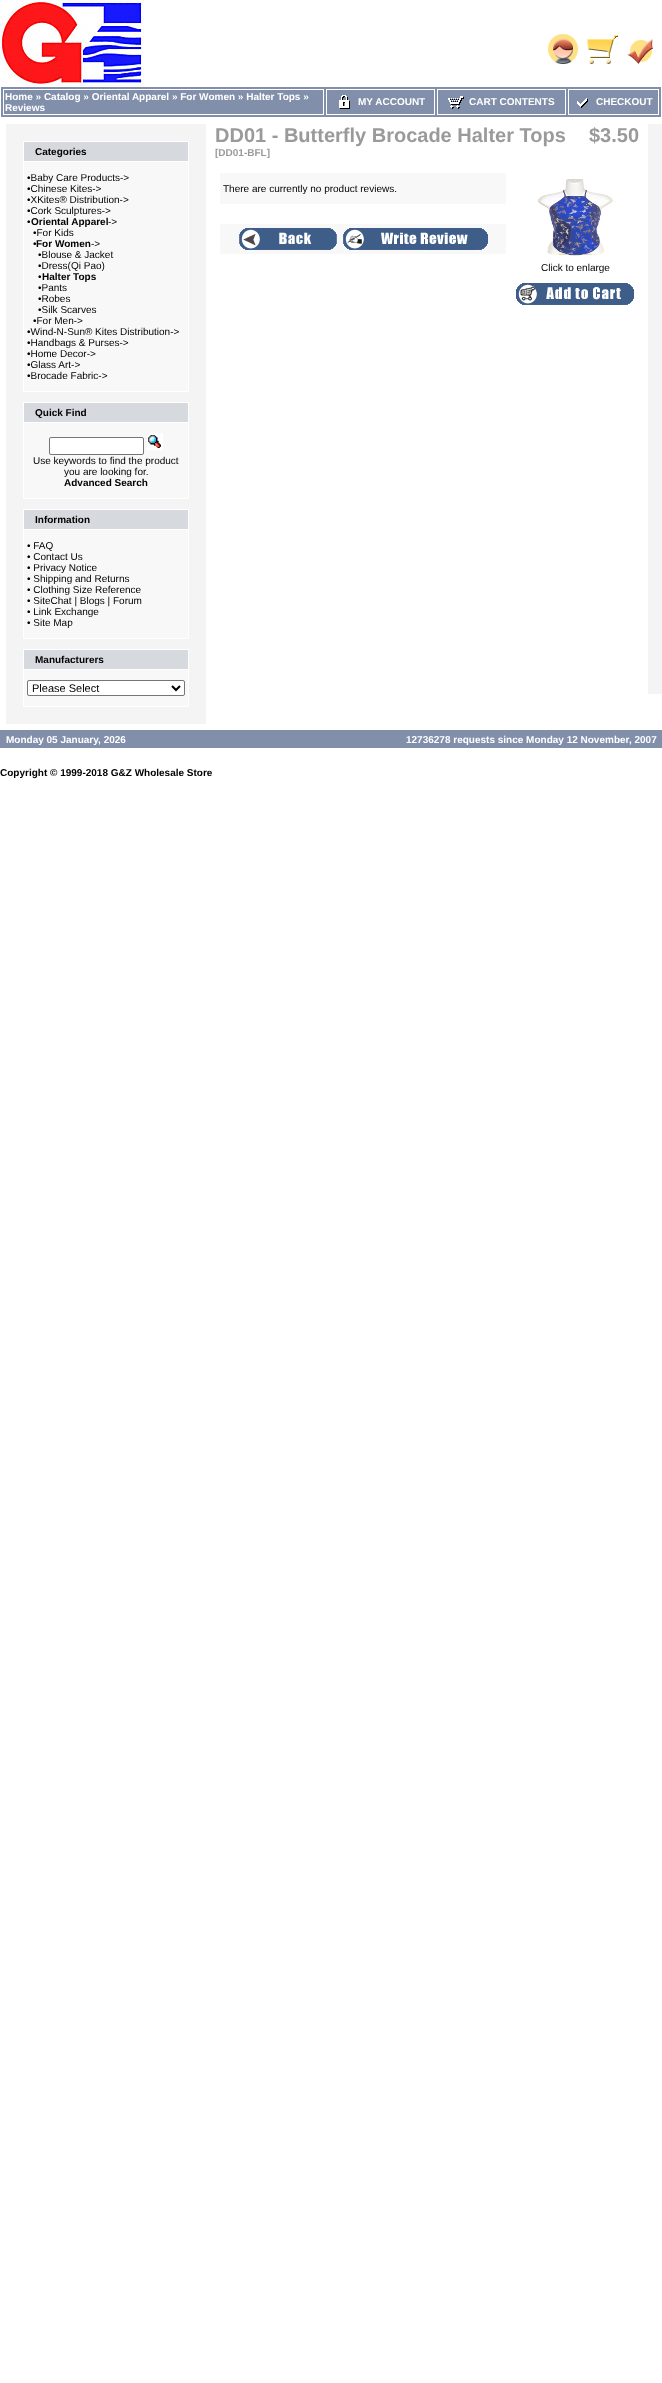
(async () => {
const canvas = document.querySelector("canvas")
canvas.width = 662
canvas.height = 2383
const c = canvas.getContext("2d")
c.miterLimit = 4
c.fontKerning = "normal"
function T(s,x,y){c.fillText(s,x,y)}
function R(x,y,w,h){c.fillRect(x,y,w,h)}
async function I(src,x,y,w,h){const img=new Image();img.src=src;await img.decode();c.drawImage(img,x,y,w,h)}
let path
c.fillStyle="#fff"
R(0,0,662,2383)
await I("1.png",0,0,144,86)
await I("2.png",548,34,30,30)
await I("3.png",587,35,31,29)
await I("4.png",627,39,26,25)
c.fillStyle="#818fab"
R(1,87,660,30)
c.strokeStyle="#fff"
c.strokeRect(3.5,89.5,320,25)
c.font="bold 10px Liberation Sans"
c.fillStyle="#fff"
T("Home » Catalog » Oriental Apparel » For Women » Halter Tops »",5,100)
T("Reviews",5,111)
c.strokeRect(326.5,89.5,108,25)
await I("5.png",339,95,11,14)
T("MY ACCOUNT",358,105)
c.strokeRect(437.5,89.5,128,25)
await I("6.png",448,96,16,13)
T("CART CONTENTS",469,105)
c.strokeRect(568.5,89.5,90,25)
await I("7.png",577,98,11,10)
T("CHECKOUT",596,105)
c.fillStyle="#f4f4f4"
R(6,124,200,600)
c.fillStyle="#d6d9de"
R(24,142,164,19)
c.fillStyle="#fff"
R(23,141,166,1)
R(23,141,1,20)
c.fillStyle="#000"
T("Categories",35,155)
c.fillStyle="#fff"
R(188,141,1,20)
R(23,161,166,231)
c.fillStyle="#f8f8f9"
R(24,162,164,229)
c.font="10px Liberation Sans"
c.fillStyle="#000"
T("•Baby Care Products->",27,181)
T("•Chinese Kites->",27,192)
T("•XKites® Distribution->",27,203)
T("•Cork Sculptures->",27,214)
T("•",27,225)
c.font="bold 10px Liberation Sans"
T("Oriental Apparel",31,225)
c.font="10px Liberation Sans"
T("->",108,225)
T("•For Kids",33,236)
T("•",33,247)
c.font="bold 10px Liberation Sans"
T("For Women",36,247)
c.font="10px Liberation Sans"
T("->",91,247)
T("•Blouse & Jacket",38,258)
T("•Dress(Qi Pao)",38,269)
T("•",38,280)
c.font="bold 10px Liberation Sans"
T("Halter Tops",42,280)
c.font="10px Liberation Sans"
T("•Pants",38,291)
T("•Robes",38,302)
T("•Silk Scarves",38,313)
T("•For Men->",33,324)
T("•Wind-N-Sun® Kites Distribution->",27,335)
T("•Handbags & Purses->",27,346)
T("•Home Decor->",27,357)
T("•Glass Art->",27,368)
T("•Brocade Fabric->",27,379)
c.fillStyle="#d6d9de"
R(24,403,164,19)
c.fillStyle="#fff"
R(23,402,166,1)
R(23,402,1,20)
c.font="bold 10px Liberation Sans"
c.fillStyle="#000"
T("Quick Find",35,416)
c.fillStyle="#fff"
R(188,402,1,20)
R(23,422,166,77)
c.fillStyle="#f8f8f9"
R(24,423,164,75)
c.fillStyle="#fff"
c.beginPath()
c.roundRect(49.5,437.5,94,17,1.5)
c.fill()
c.strokeStyle="#767676"
c.stroke()
await I("8.png",147,433,16,17)
c.font="10px Liberation Sans"
c.fillStyle="#000"
T("Use keywords to find the product",33,464)
T("you are looking for.",64,475)
c.font="bold 10px Liberation Sans"
T("Advanced Search",64,486)
c.fillStyle="#d6d9de"
R(24,510,164,19)
c.fillStyle="#fff"
R(23,509,166,1)
R(23,509,1,20)
c.fillStyle="#000"
T("Information",35,523)
c.fillStyle="#fff"
R(188,509,1,20)
R(23,529,166,110)
c.fillStyle="#f8f8f9"
R(24,530,164,108)
c.font="10px Liberation Sans"
c.fillStyle="#000"
T("• FAQ",27,549)
T("• Contact Us",27,560)
T("• Privacy Notice",27,571)
T("• Shipping and Returns",27,582)
T("• Clothing Size Reference",27,593)
T("• SiteChat | Blogs | Forum",27,604)
T("• Link Exchange",27,615)
T("• Site Map",27,626)
c.fillStyle="#d6d9de"
R(24,650,164,19)
c.fillStyle="#fff"
R(23,649,166,1)
R(23,649,1,20)
c.font="bold 10px Liberation Sans"
c.fillStyle="#000"
T("Manufacturers",35,663)
c.fillStyle="#fff"
R(188,649,1,20)
R(23,669,166,38)
c.fillStyle="#f8f8f9"
R(24,670,164,36)
c.fillStyle="#fff"
c.beginPath()
c.roundRect(27.5,680.5,157,15,1.5)
c.fill()
c.stroke()
path = new Path2D("M172 686l4 4l4-4")
c.strokeStyle="#000"
c.lineWidth=2
c.stroke(path)
c.font="11px Liberation Sans"
c.fillStyle="#000"
T("Please Select",32,692)
c.font="bold 20px Liberation Sans"
c.fillStyle="#9a9a9a"
T("DD01 - Butterfly Brocade Halter Tops",215,142)
c.font="bold 10px Liberation Sans"
T("[DD01-BFL]",215,156)
c.font="bold 20px Liberation Sans"
T("$3.50",589,142)
c.fillStyle="#f8f8f9"
R(220,173,286,31)
c.font="10px Liberation Sans"
c.fillStyle="#000"
T("There are currently no product reviews.",223,192)
c.fillStyle="#f8f8f9"
R(220,224,286,30)
await I("9.png",239,228,98,22)
await I("10.png",343,228,145,22)
await I("11.png",538,179,75,77)
c.fillStyle="#000"
T("Click to enlarge",541,271)
await I("12.png",516,283,118,22)
c.fillStyle="#f4f4f4"
R(648,124,14,570)
c.fillStyle="#818fab"
R(0,730,662,18)
c.font="bold 10px Liberation Sans"
c.fillStyle="#fff"
T("Monday 05 January, 2026",6,743)
T("12736278 requests since Monday 12 November, 2007",406,743)
c.fillStyle="#000"
T("Copyright © 1999-2018 G&Z Wholesale Store",0,776)
})()
